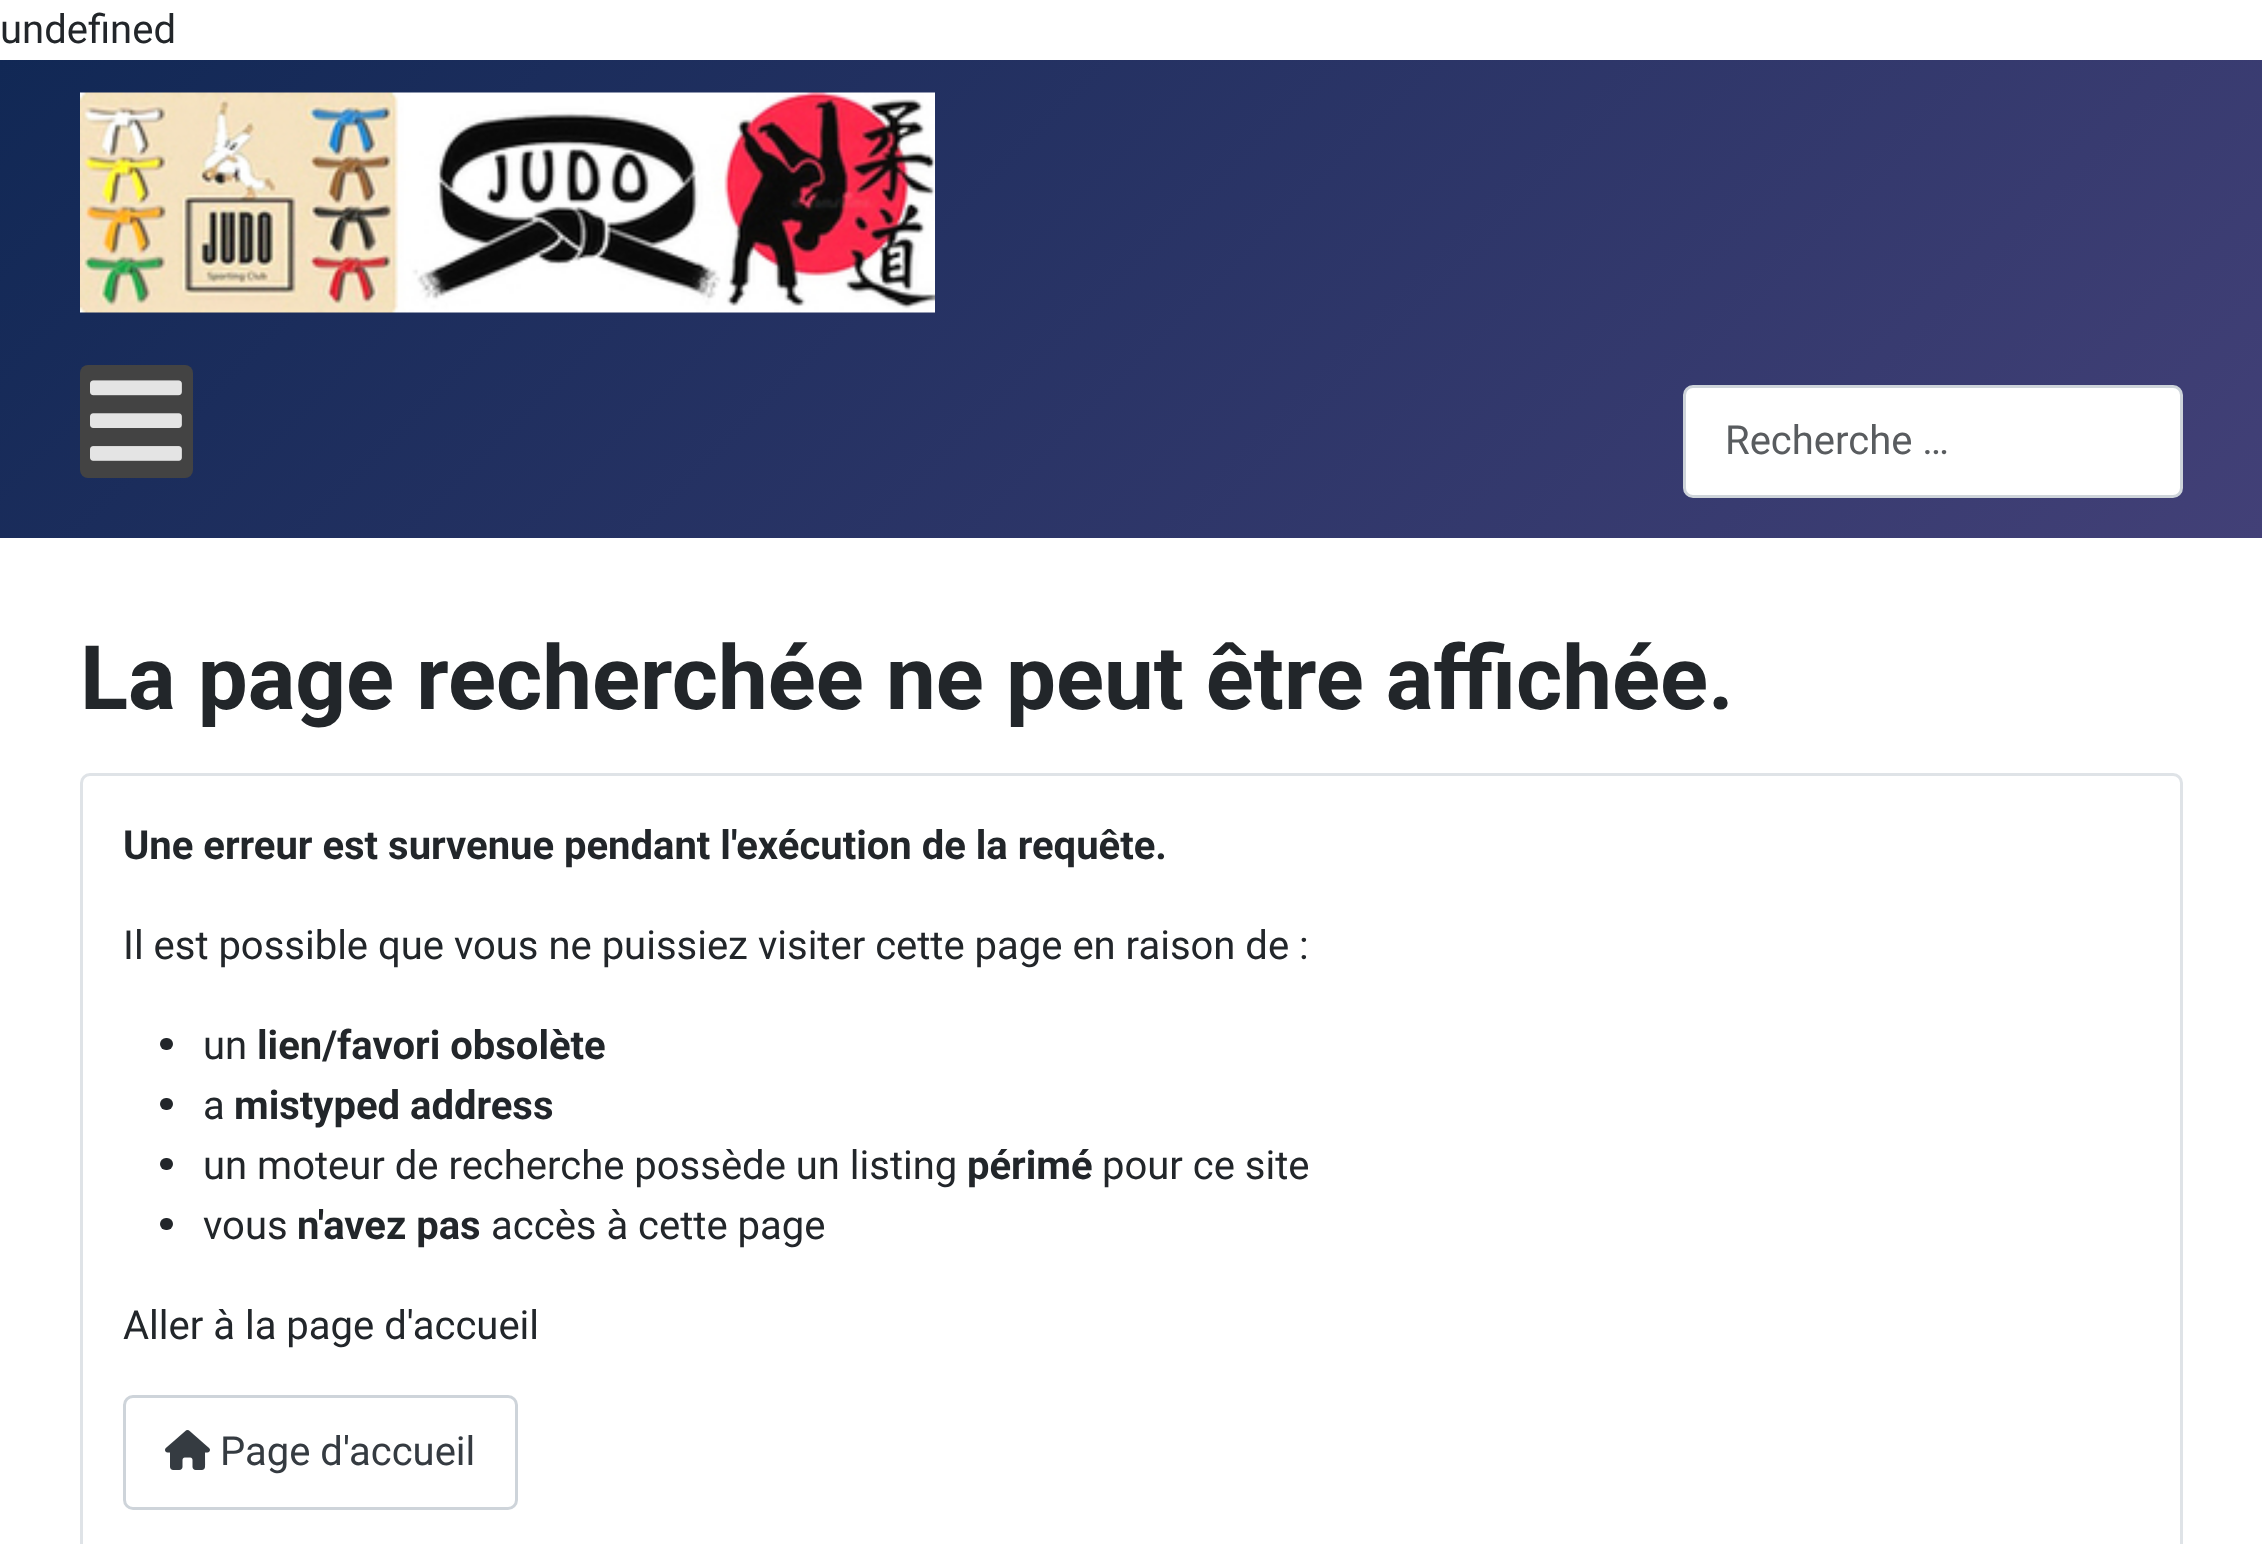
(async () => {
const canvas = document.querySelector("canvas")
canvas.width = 2262
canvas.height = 1544
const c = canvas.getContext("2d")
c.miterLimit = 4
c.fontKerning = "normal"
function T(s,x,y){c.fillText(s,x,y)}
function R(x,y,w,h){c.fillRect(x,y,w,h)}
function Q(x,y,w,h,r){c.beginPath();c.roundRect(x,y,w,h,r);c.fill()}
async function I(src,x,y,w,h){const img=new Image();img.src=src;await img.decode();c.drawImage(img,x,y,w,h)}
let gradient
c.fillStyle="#fff"
R(0,0,2262,1544)
c.font="40px Roboto"
c.fillStyle="#22262a"
T("undefined",0,43)
gradient = c.createLinearGradient(446,-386,1816,984)
gradient.addColorStop(0,"#112855")
gradient.addColorStop(1,"#424077")
c.fillStyle = gradient
R(0,60,2262,478)
await I("1.png",80,92,855,221)
c.fillStyle="#434343"
Q(80,365,113,113,8)
await I("2.png",90,380,92,81)
c.fillStyle="#fff"
c.beginPath()
c.roundRect(1684.5,386.5,497,110,8.5)
c.fill()
c.strokeStyle="#ced4da"
c.lineWidth=3
c.stroke()
c.fillStyle="#595c5f"
T("Recherche …",1725,454)
c.font="bold 88.9px Roboto"
c.fillStyle="#22262a"
T("La page recherchée ne peut être affichée.",80,709)
c.beginPath()
c.roundRect(81.5,774.5,2100,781,8.5)
c.strokeStyle="#dfe3e7"
c.stroke()
c.font="bold 40px Roboto"
T("Une erreur est survenue pendant l'exécution de la requête.",123,859)
c.font="40px Roboto"
T("Il est possible que vous ne puissiez visiter cette page en raison de :",123,959)
Q(160,1038,13,12,6)
T("un",203,1059)
c.font="bold 40px Roboto"
T("lien/favori obsolète",257,1059)
Q(160,1098,13,12,6)
c.font="40px Roboto"
T("a",203,1119)
c.font="bold 40px Roboto"
T("mistyped address",234,1119)
Q(160,1158,13,12,6)
c.font="40px Roboto"
T("un moteur de recherche possède un listing",203,1179)
c.font="bold 40px Roboto"
T("périmé",967,1179)
c.font="40px Roboto"
T("pour ce site",1102,1179)
Q(160,1218,13,12,6)
T("vous",203,1239)
c.font="bold 40px Roboto"
T("n'avez pas",297,1239)
c.font="40px Roboto"
T("accès à cette page",491,1239)
T("Aller à la page d'accueil",123,1339)
c.beginPath()
c.roundRect(124.5,1396.5,392,112,8.5)
c.strokeStyle="#ced4da"
c.stroke()
await I("3.png",165,1430,45,40)
c.fillStyle="#353b41"
T("Page d'accueil",220,1465)
})()
